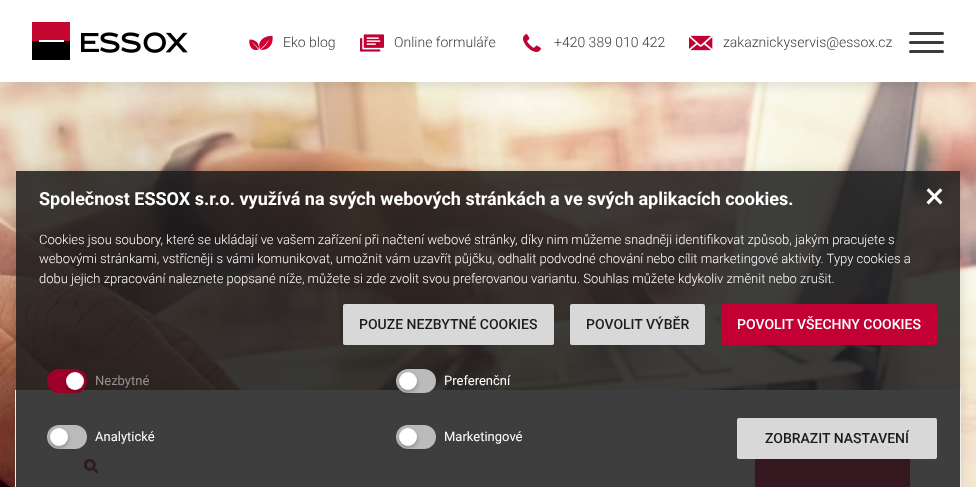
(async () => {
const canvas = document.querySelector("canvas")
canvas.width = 976
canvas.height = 487
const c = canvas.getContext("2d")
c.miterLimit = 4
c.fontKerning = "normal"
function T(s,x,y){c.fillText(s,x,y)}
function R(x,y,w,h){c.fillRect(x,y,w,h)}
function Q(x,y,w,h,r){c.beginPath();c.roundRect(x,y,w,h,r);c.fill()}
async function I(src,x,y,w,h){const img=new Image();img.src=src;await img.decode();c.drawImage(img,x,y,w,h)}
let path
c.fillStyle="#fff"
R(0,0,976,487)
await I("6.png",0,82,976,405)
c.fillStyle="#00000021"
c.filter="blur(7px)"
c.beginPath()
c.rect(0,2,976,82)
c.fill()
c.filter="none"
c.fillStyle="#fff"
R(0,0,976,82)
await I("1.png",32,22,156,38)
await I("2.png",249,35,24,16)
c.font="300 14px Roboto"
c.fillStyle="#3a3a3a"
T("Eko blog",283,47)
await I("3.png",360,34,24,18)
T("Online formuláře",394,47)
await I("4.png",523,34,18,18)
T("+420 389 010 422",554,47)
await I("5.png",689,35,24,16)
T("zakaznickyservis@essox.cz",723,47)
Q(909,32,35,3,1.5)
Q(909,41,35,3,1.5)
Q(909,50,35,3,1.5)
c.fillStyle="#fff"
R(15,390,946,97)
c.fillStyle="#f6f6f6"
R(63,437,850,50)
await I("7.png",83,458,16,16)
c.fillStyle="#c30033"
R(755,459,155,28)
c.save()
path = new Path2D("M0 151h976v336h-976zm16 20h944v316h-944z")
c.clip(path,"evenodd")
c.fillStyle="#00000021"
c.filter="blur(7px)"
c.beginPath()
c.rect(16,173,944,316)
c.fill()
c.filter="none"
c.restore()
c.fillStyle="#1c1c1cd9"
R(16,171,944,316)
c.font="bold 18px Roboto"
c.fillStyle="#fff"
T("Společnost ESSOX s.r.o. využívá na svých webových stránkách a ve svých aplikacích cookies.",39,205)
c.font="300 13px Roboto"
T("Cookies jsou soubory, které se ukládají ve vašem zařízení při načtení webové stránky, díky nim můžeme snadněji identifikovat způsob, jakým pracujete s",39,244)
T("webovými stránkami, vstřícněji s vámi komunikovat, umožnit vám uzavřít půjčku, odhalit podvodné chování nebo cílit marketingové aktivity. Typy cookies a",39,263)
T("dobu jejich zpracování naleznete popsané níže, můžete si zde zvolit svou preferovanou variantu. Souhlas můžete kdykoliv změnit nebo zrušit.",39,283)
c.fillStyle="#d8d8d8"
Q(343,304,211,41,2)
c.font="500 14px Roboto"
c.fillStyle="#1c1c1c"
T("POUZE NEZBYTNÉ COOKIES",359,329)
c.fillStyle="#d8d8d8"
Q(570,304,135,41,2)
c.fillStyle="#1c1c1c"
T("POVOLIT VÝBĚR",586,329)
c.fillStyle="#c30033"
Q(721,304,216,41,2)
c.fillStyle="#fff"
T("POVOLIT VŠECHNY COOKIES",737,329)
c.fillStyle="#9d0029"
Q(47,369,40,24,12)
c.fillStyle="#00000045"
c.filter="blur(2px)"
c.beginPath()
c.roundRect(66,374,18,18,9)
c.fill()
c.filter="none"
c.fillStyle="#fff"
c.beginPath()
c.arc(75,381,9,0,7)
c.fill()
c.font="13px Roboto"
c.fillStyle="#919191"
T("Nezbytné",95,385)
c.fillStyle="#bbb"
Q(396,369,40,24,12)
c.fillStyle="#00000045"
c.filter="blur(2px)"
c.beginPath()
c.roundRect(399,374,18,18,9)
c.fill()
c.filter="none"
c.fillStyle="#fff"
c.beginPath()
c.arc(408,381,9,0,7)
c.fill()
T("Preferenční",444,385)
c.fillStyle="#bbb"
Q(47,425,40,24,12)
c.fillStyle="#00000045"
c.filter="blur(2px)"
c.beginPath()
c.roundRect(50,430,18,18,9)
c.fill()
c.filter="none"
c.fillStyle="#fff"
c.beginPath()
c.arc(59,437,9,0,7)
c.fill()
T("Analytické",95,441)
c.fillStyle="#bbb"
Q(396,425,40,24,12)
c.fillStyle="#00000045"
c.filter="blur(2px)"
c.beginPath()
c.roundRect(399,430,18,18,9)
c.fill()
c.filter="none"
c.fillStyle="#fff"
c.beginPath()
c.arc(408,437,9,0,7)
c.fill()
T("Marketingové",444,441)
c.fillStyle="#d8d8d8"
Q(737,418,200,41,2)
c.font="500 14px Roboto"
c.fillStyle="#1c1c1c"
T("ZOBRAZIT NASTAVENÍ",765,443)
c.font="36px Roboto"
c.fillStyle="#fff"
T("×",925,208)
})()
